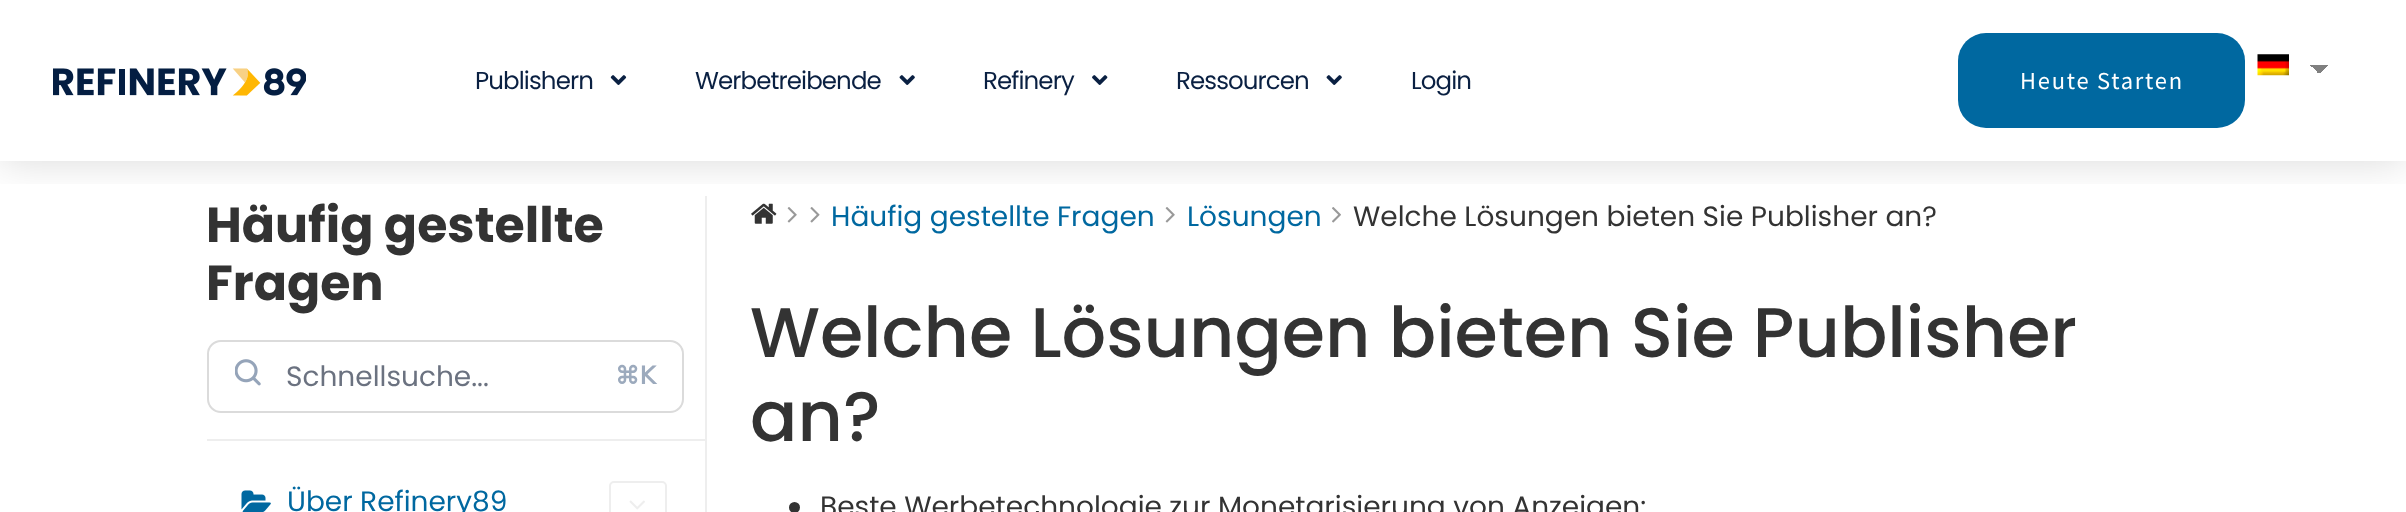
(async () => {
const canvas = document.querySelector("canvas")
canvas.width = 2406
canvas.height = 512
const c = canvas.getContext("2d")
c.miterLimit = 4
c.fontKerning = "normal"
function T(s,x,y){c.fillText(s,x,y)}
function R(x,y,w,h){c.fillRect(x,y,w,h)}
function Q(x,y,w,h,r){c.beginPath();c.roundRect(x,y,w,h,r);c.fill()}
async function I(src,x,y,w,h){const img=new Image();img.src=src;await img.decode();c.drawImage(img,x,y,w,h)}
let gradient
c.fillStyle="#fff"
R(0,0,2406,512)
c.fillStyle="#eee"
R(705,196,2,316)
await I("9.png",751,203,26,21)
await I("10.png",787,207,10,16)
await I("11.png",810,207,10,16)
await I("10.png",1165,207,10,16)
await I("12.png",1332,207,9,16)
c.save()
c.beginPath()
c.rect(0,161,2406,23)
c.clip()
c.fillStyle="#00000026"
c.filter="blur(21px)"
c.beginPath()
c.rect(0,0,2406,161)
c.fill()
c.filter="none"
c.restore()
await I("1.png",53,68,253,28)
c.letterSpacing="-0.9px"
c.font="24.5px Poppins"
c.fillStyle="#0a2042"
T("Publishern",475,89)
await I("2.png",610,75,17,10)
T("Werbetreibende",695,89)
await I("3.png",899,75,16,10)
T("Refinery",983,89)
await I("4.png",1092,75,16,10)
T("Ressourcen",1176,89)
await I("3.png",1326,75,16,10)
T("Login",1411,89)
gradient = c.createLinearGradient(2319,65,2328,74)
gradient.addColorStop(.5,"#808080")
gradient.addColorStop(.5,"#fff")
c.fillStyle = gradient
R(2319,65,9,8)
gradient = c.createLinearGradient(2310,74,2319,65)
gradient.addColorStop(.5,"#fff")
gradient.addColorStop(.5,"#808080")
c.fillStyle = gradient
R(2310,65,9,8)
await I("5.png",2257,54,32,22)
c.fillStyle="#0068a0"
Q(1958,33,287,95,28)
c.letterSpacing="1.75px"
c.font="24.5px Source Sans Pro"
c.fillStyle="#fff"
T("Heute Starten",2020,89)
c.letterSpacing="0px"
c.font="bold 49px Poppins"
c.fillStyle="#333"
T("Häufig gestellte",206,242)
T("Fragen",206,300)
c.fillStyle="#eee"
R(207,439,498,2)
c.beginPath()
c.roundRect(208,341,475,71,13)
c.strokeStyle="#dbdbdb"
c.lineWidth=2
c.stroke()
await I("6.png",235,359,26,27)
c.font="28px Poppins"
c.fillStyle="#6b7280"
T("Schnellsuche...",286,386)
c.font="bold 24.5px DejaVu Sans"
c.fillStyle="#9caabd"
T("⌘K",615,384)
await I("7.png",241,490,30,22)
c.font="28px Poppins"
c.fillStyle="#0068a0"
T("Über Refinery89",287,511)
c.beginPath()
c.roundRect(610,482,56,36,4)
c.strokeStyle="#eee"
c.stroke()
await I("8.png",629,500,16,10)
T("Häufig gestellte Fragen",831,226)
T("Lösungen",1187,226)
c.fillStyle="#333"
T("Welche Lösungen bieten Sie Publisher an?",1353,226)
c.font="500 70px Poppins"
T("Welche Lösungen bieten Sie Publisher",750,357)
T("an?",750,441)
c.beginPath()
c.arc(794.5,507.5,5.5,0,7)
c.fill()
c.font="28px Poppins"
T("Beste Werbetechnologie zur Monetarisierung von Anzeigen:",820,516)
})()
